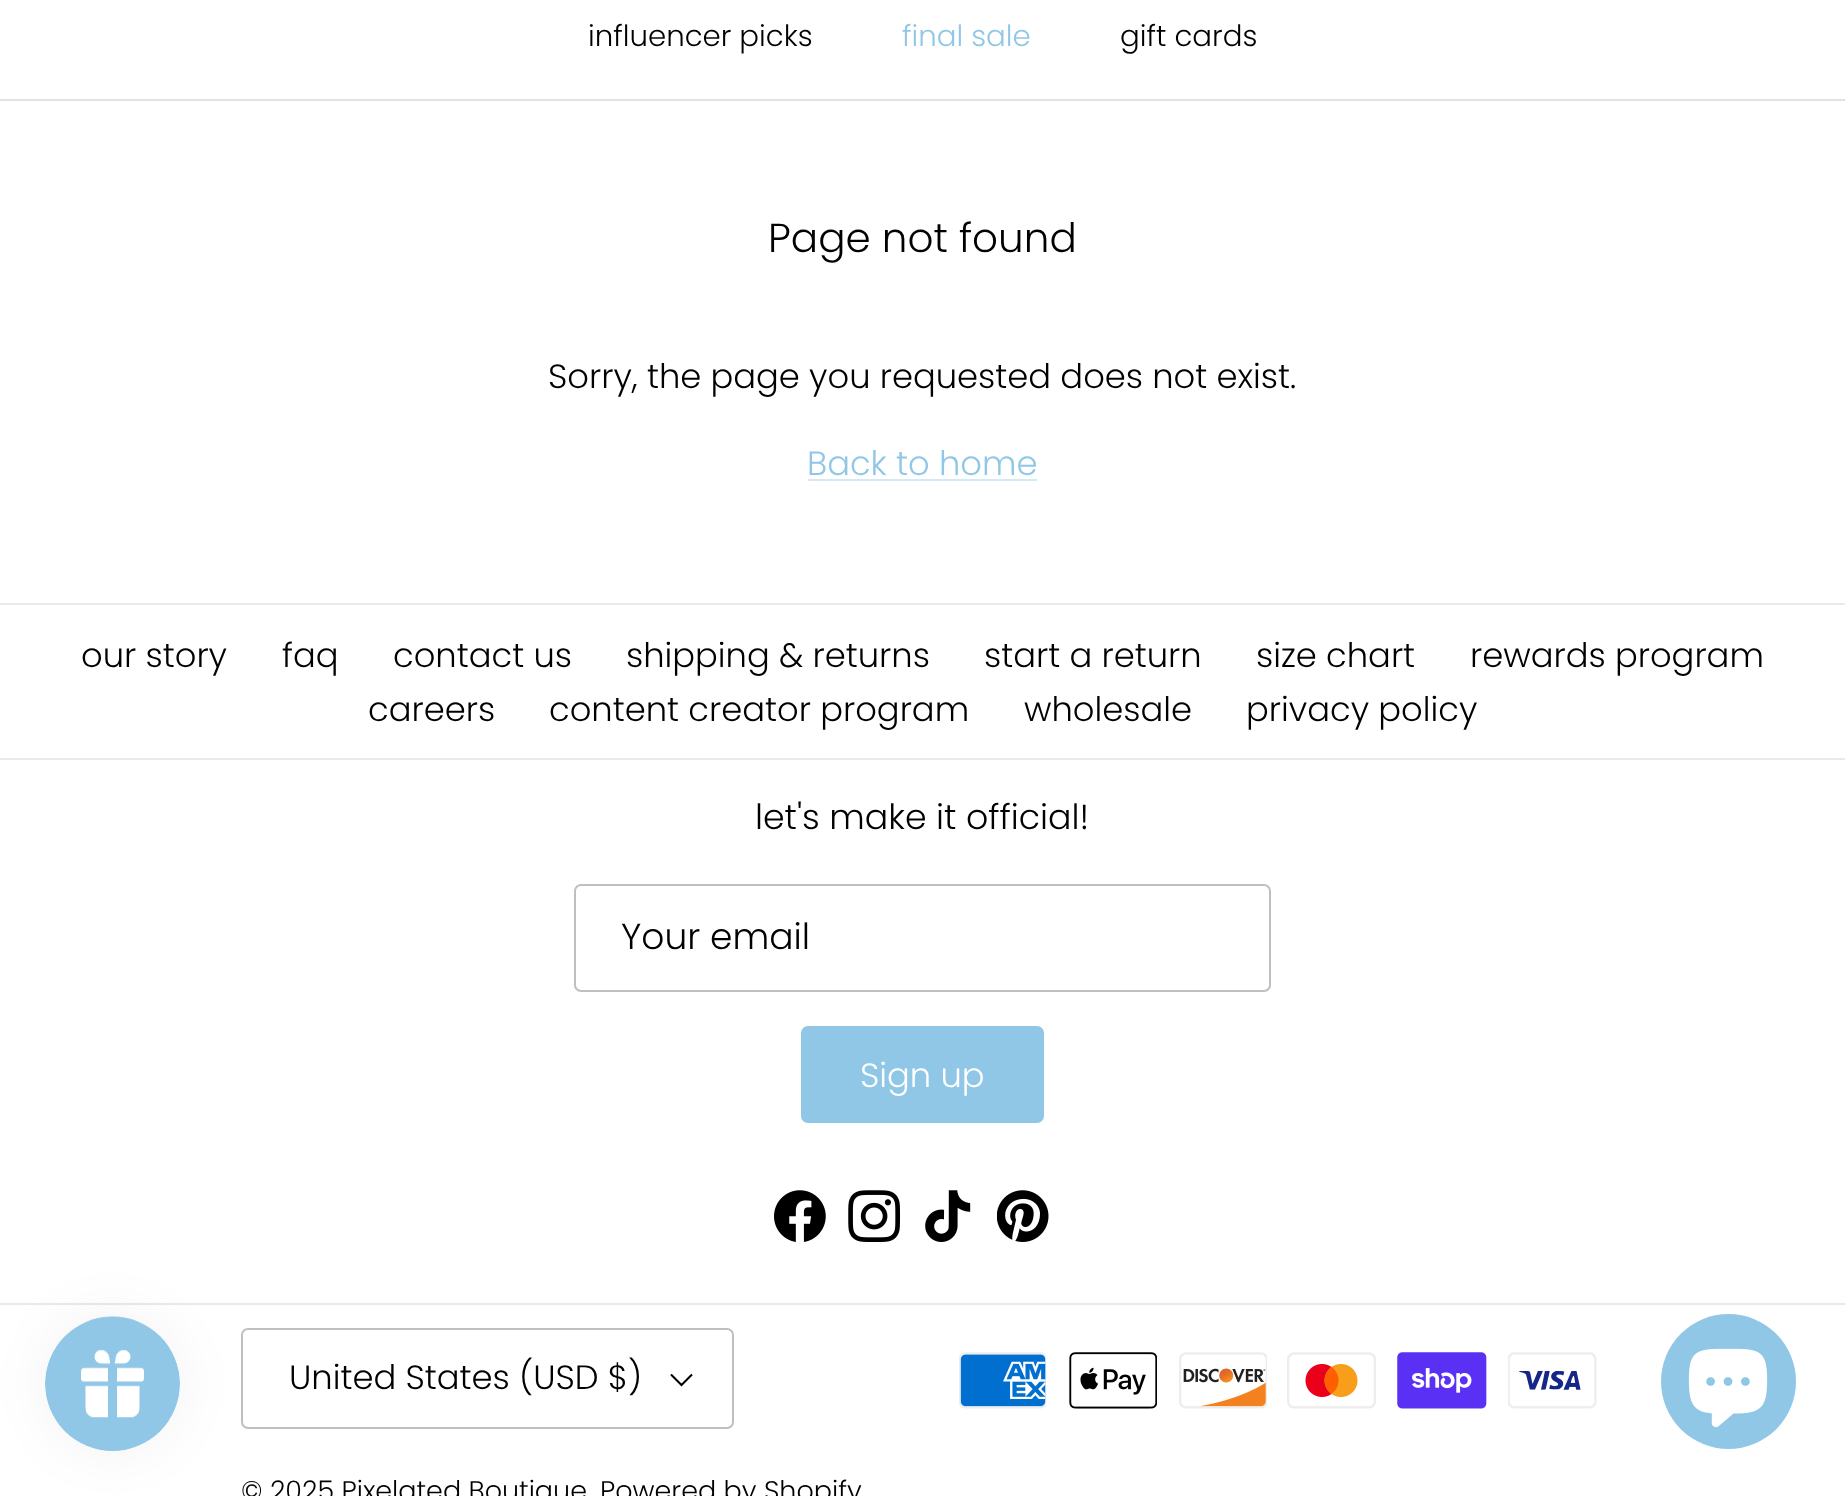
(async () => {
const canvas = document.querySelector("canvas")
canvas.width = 1845
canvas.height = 1496
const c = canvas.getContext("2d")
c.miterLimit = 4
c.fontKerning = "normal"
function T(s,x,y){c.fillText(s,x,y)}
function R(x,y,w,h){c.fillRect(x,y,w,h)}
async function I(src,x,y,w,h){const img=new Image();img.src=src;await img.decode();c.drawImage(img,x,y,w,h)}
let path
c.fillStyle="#fff"
R(0,0,1845,1496)
c.fillStyle="#dfe3e8"
R(0,99,1845,2)
c.font="300 29.25px Poppins"
c.fillStyle="#000"
T("influencer picks",588,46)
c.fillStyle="#91c7e6"
T("final sale",902,46)
c.fillStyle="#000"
T("gift cards",1120,46)
c.font="300 40.5px Poppins"
T("Page not found",768,252)
c.font="300 33.75px Poppins"
T("Sorry, the page you requested does not exist.",548,388)
c.fillStyle="#91c7e6"
T("Back to home",807,475)
c.fillStyle="#d3e9f5"
R(808,479,229,2)
c.fillStyle="#e9e9e9"
R(0,603,1845,2)
c.fillStyle="#000"
T("our story",81,667)
T("faq",282,667)
T("contact us",393,667)
T("shipping & returns",626,667)
T("start a return",984,667)
T("size chart",1256,667)
T("rewards program",1470,667)
T("careers",368,721)
T("content creator program",549,721)
T("wholesale",1024,721)
T("privacy policy",1246,721)
c.fillStyle="#e9e9e9"
R(0,758,1845,2)
c.font="300 34.75px Poppins"
c.fillStyle="#000"
T("let's make it official!",755,829)
c.beginPath()
c.roundRect(575,885,695,106,6)
c.strokeStyle="#bfbfbf"
c.lineWidth=2
c.stroke()
c.font="300 36px Poppins"
T("Your email",621,949)
c.fillStyle="#91c7e6"
c.beginPath()
c.roundRect(802,1027,241,95,6)
c.fill()
c.strokeStyle="#91c7e6"
c.stroke()
c.font="300 33.75px Poppins"
c.fillStyle="#fff"
T("Sign up",860,1087)
await I("1.png",774,1190,52,52)
await I("2.png",848,1190,52,52)
await I("3.png",925,1190,46,52)
await I("4.png",997,1190,52,52)
c.fillStyle="#e9e9e9"
R(0,1303,1845,2)
c.beginPath()
c.roundRect(242,1329,491,99,6)
c.strokeStyle="#bfbfbf"
c.stroke()
c.fillStyle="#000"
T("United States (USD $)",289,1389)
path = new Path2D("M692 1374.5l-10.5 10.5l-10.5-10.5")
c.strokeStyle="#000"
c.lineWidth=2.1
c.stroke(path)
c.font="300 27px Poppins"
T("© 2025 Pixelated Boutique",241,1500)
T("Powered by Shopify",600,1500)
await I("5.png",959,1352,87,57)
await I("6.png",1069,1352,88,57)
await I("7.png",1179,1352,88,57)
await I("8.png",1287,1352,89,57)
await I("9.png",1397,1352,90,57)
await I("10.png",1508,1352,89,57)
c.fillStyle="#0000000d"
c.filter="blur(28px)"
c.beginPath()
c.roundRect(45,1316,135,135,67.5)
c.fill()
c.filter="none"
await I("11.png",45,1316,135,136)
c.fillStyle="#91c7e6"
c.beginPath()
c.arc(1728.5,1381.5,67.5,0,7)
c.fill()
await I("12.png",1688,1348,80,80)
})()
